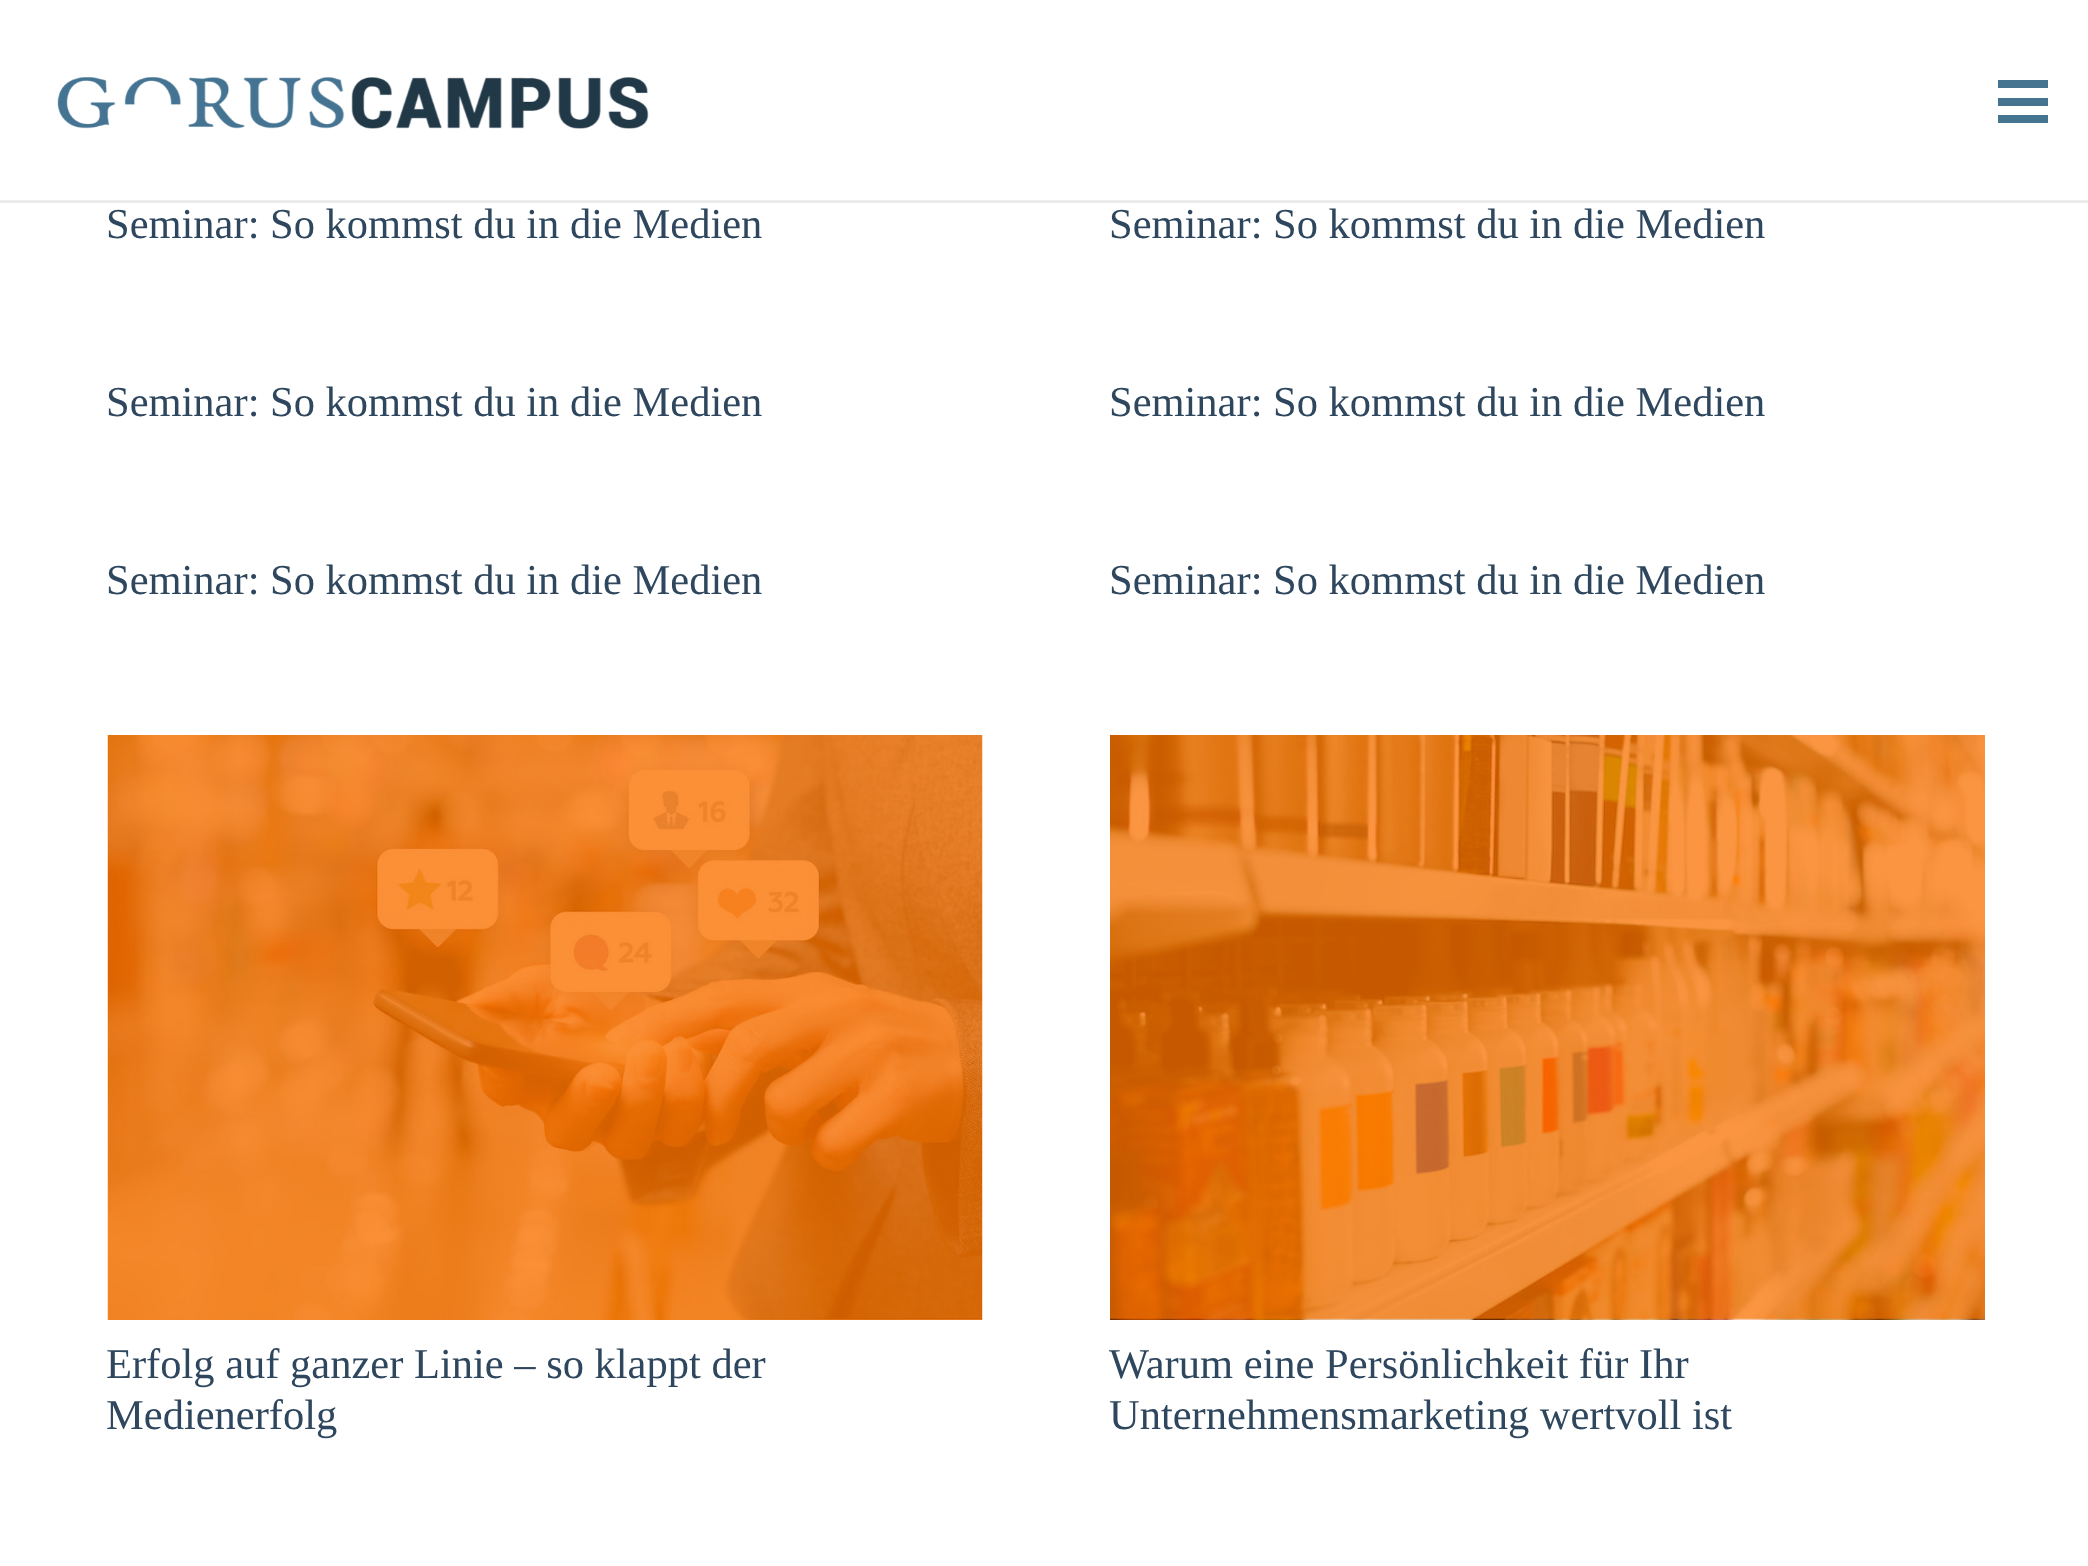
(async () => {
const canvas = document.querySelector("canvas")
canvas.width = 2088
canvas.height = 1566
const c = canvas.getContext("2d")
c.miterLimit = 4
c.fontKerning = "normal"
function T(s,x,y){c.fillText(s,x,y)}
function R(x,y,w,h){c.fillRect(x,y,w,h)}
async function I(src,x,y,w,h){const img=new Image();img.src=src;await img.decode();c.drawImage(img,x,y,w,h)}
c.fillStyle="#fff"
R(0,0,2088,1566)
c.fillStyle="#ebebeb"
R(0,200,2088,3)
await I("1.png",57,77,592,52)
c.fillStyle="#447490"
R(1998,98,50,8)
R(1998,80,50,8)
R(1998,115,50,8)
c.font="42.5px Liberation Serif"
c.fillStyle="#2e475e"
T("Seminar: So kommst du in die Medien",106,238)
T("Seminar: So kommst du in die Medien",1109,238)
T("Seminar: So kommst du in die Medien",106,416)
T("Seminar: So kommst du in die Medien",1109,416)
T("Seminar: So kommst du in die Medien",106,594)
T("Seminar: So kommst du in die Medien",1109,594)
await I("2.png",107,735,876,585)
T("Erfolg auf ganzer Linie – so klappt der",106,1378)
T("Medienerfolg",106,1429)
await I("3.png",1110,735,875,585)
T("Warum eine Persönlichkeit für Ihr",1109,1378)
T("Unternehmensmarketing wertvoll ist",1109,1429)
})()
